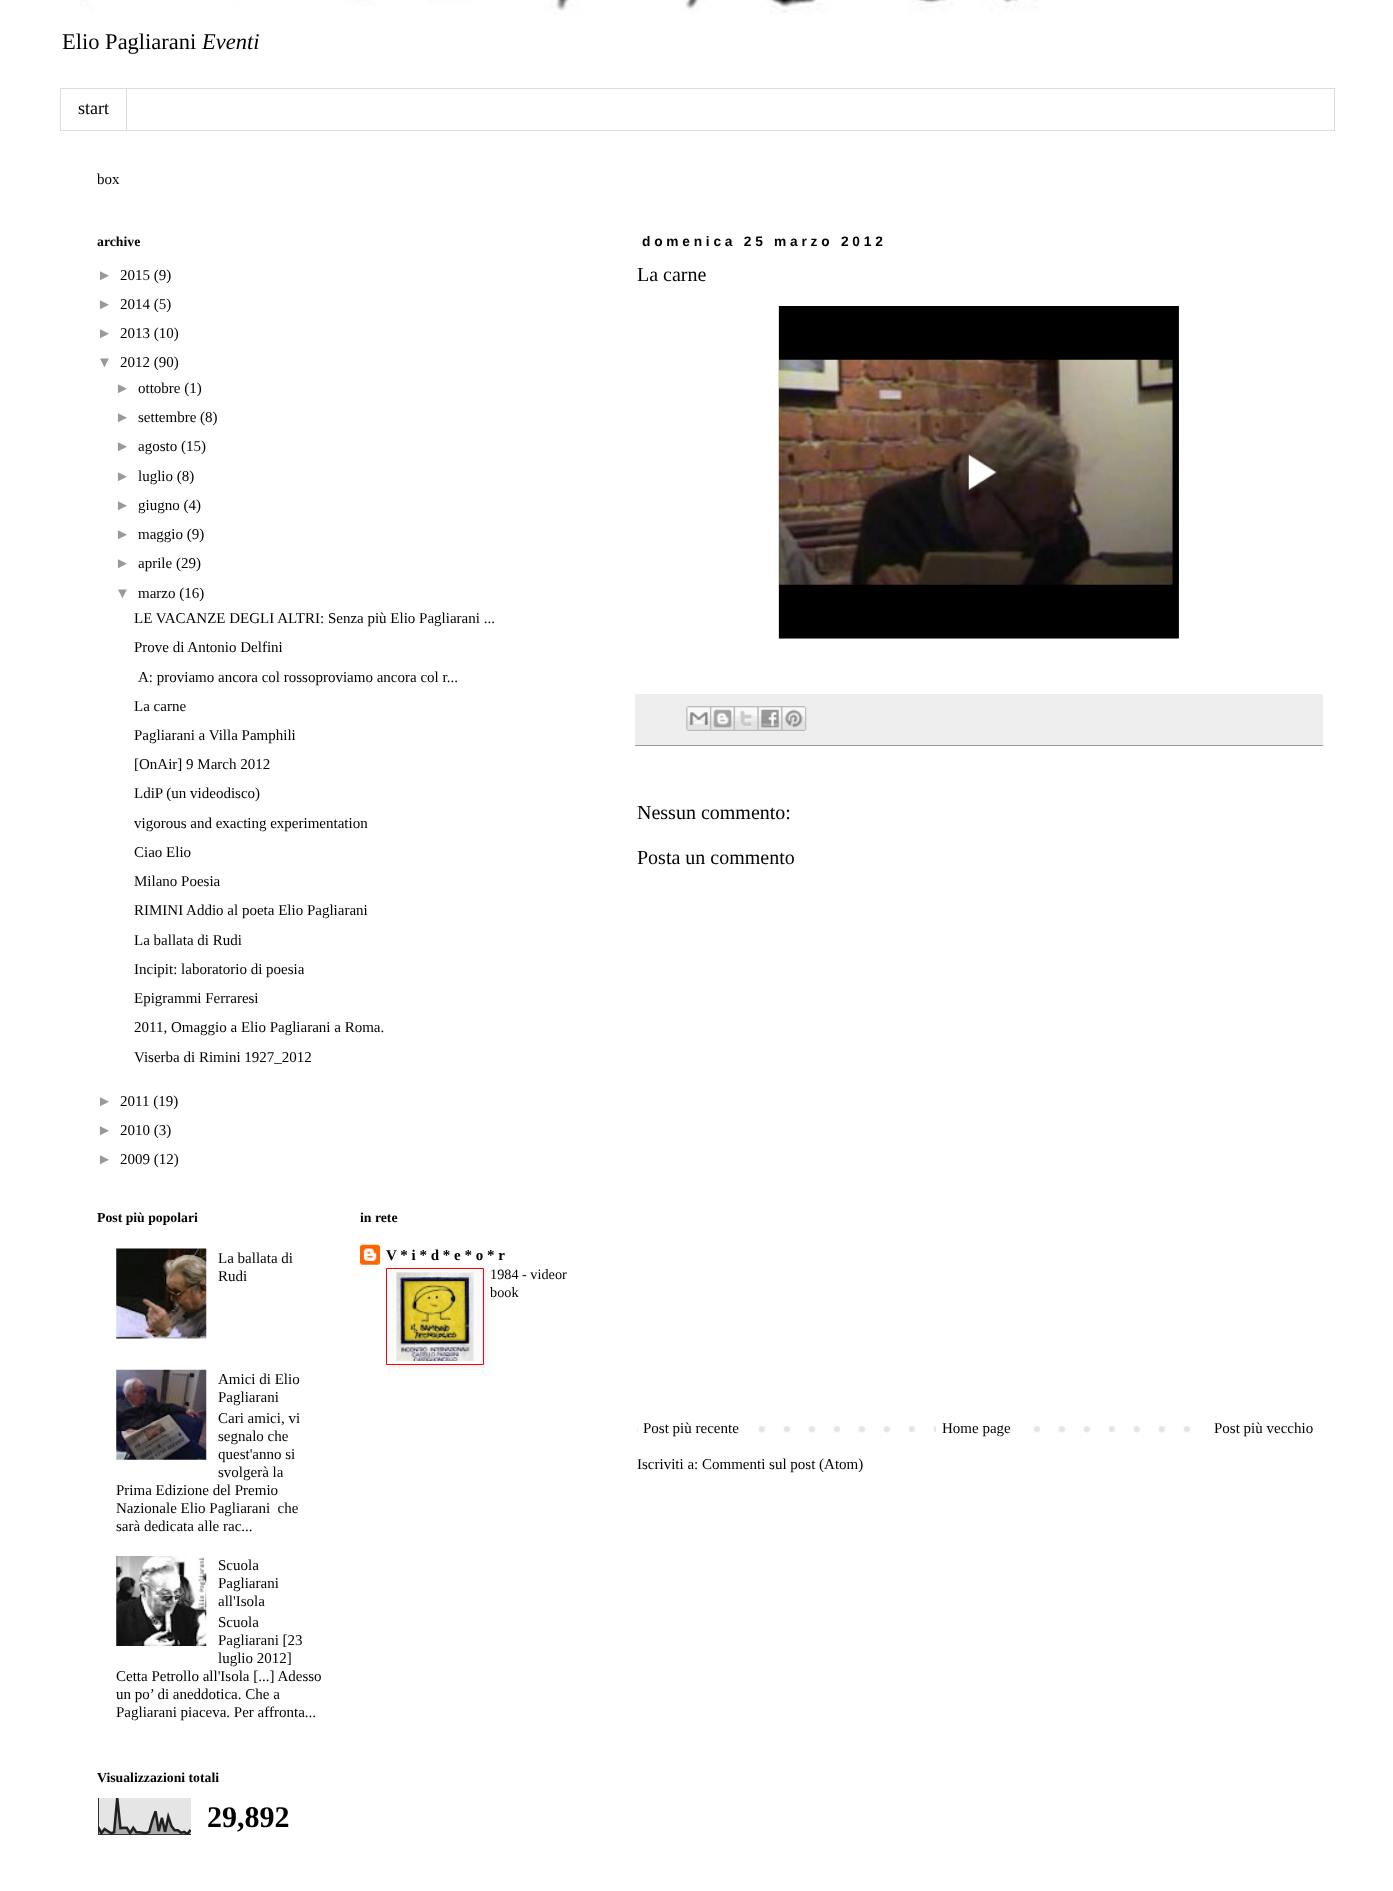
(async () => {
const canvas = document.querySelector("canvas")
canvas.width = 1393
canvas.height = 1891
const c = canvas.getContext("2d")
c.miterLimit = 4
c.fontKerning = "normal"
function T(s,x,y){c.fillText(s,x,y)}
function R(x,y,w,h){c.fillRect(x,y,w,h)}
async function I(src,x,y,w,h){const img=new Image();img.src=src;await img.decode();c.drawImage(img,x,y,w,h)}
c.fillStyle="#fff"
R(0,0,1393,1891)
await I("1.png",79,0,960,15)
c.font="22.5px Liberation Serif"
c.fillStyle="#000"
T("Elio Pagliarani",62,49)
c.font="italic 22.5px Liberation Serif"
T("Eventi",202,49)
c.strokeStyle="#ddd"
c.strokeRect(60.5,88.5,1274,42)
c.fillStyle="#ddd"
R(126,89,1,41)
c.font="18px Liberation Serif"
c.fillStyle="#000"
T("start",78,114)
c.font="15px Liberation Serif"
T("box",97,184)
c.font="bold 13.75px Liberation Serif"
T("archive",97,246)
c.font="15px Liberation Sans"
c.fillStyle="#999"
T("►",97,280)
c.font="15px Liberation Serif"
c.fillStyle="#000"
T("2015 (9)",120,280)
c.font="15px Liberation Sans"
c.fillStyle="#999"
T("►",97,309)
c.font="15px Liberation Serif"
c.fillStyle="#000"
T("2014 (5)",120,309)
c.font="15px Liberation Sans"
c.fillStyle="#999"
T("►",97,338)
c.font="15px Liberation Serif"
c.fillStyle="#000"
T("2013 (10)",120,338)
c.font="15px Liberation Sans"
c.fillStyle="#999"
T("▼",97,367)
c.font="15px Liberation Serif"
c.fillStyle="#000"
T("2012 (90)",120,367)
c.font="15px Liberation Sans"
c.fillStyle="#999"
T("►",115,393)
c.font="15px Liberation Serif"
c.fillStyle="#000"
T("ottobre (1)",138,393)
c.font="15px Liberation Sans"
c.fillStyle="#999"
T("►",115,422)
c.font="15px Liberation Serif"
c.fillStyle="#000"
T("settembre (8)",138,422)
c.font="15px Liberation Sans"
c.fillStyle="#999"
T("►",115,451)
c.font="15px Liberation Serif"
c.fillStyle="#000"
T("agosto (15)",138,451)
c.font="15px Liberation Sans"
c.fillStyle="#999"
T("►",115,481)
c.font="15px Liberation Serif"
c.fillStyle="#000"
T("luglio (8)",138,481)
c.font="15px Liberation Sans"
c.fillStyle="#999"
T("►",115,510)
c.font="15px Liberation Serif"
c.fillStyle="#000"
T("giugno (4)",138,510)
c.font="15px Liberation Sans"
c.fillStyle="#999"
T("►",115,539)
c.font="15px Liberation Serif"
c.fillStyle="#000"
T("maggio (9)",138,539)
c.font="15px Liberation Sans"
c.fillStyle="#999"
T("►",115,568)
c.font="15px Liberation Serif"
c.fillStyle="#000"
T("aprile (29)",138,568)
c.font="15px Liberation Sans"
c.fillStyle="#999"
T("▼",115,598)
c.font="15px Liberation Serif"
c.fillStyle="#000"
T("marzo (16)",138,598)
T("LE VACANZE DEGLI ALTRI: Senza più Elio Pagliarani ...",134,623)
T("Prove di Antonio Delfini",134,652)
T("A: proviamo ancora col rossoproviamo ancora col r...",138,682)
T("La carne",134,711)
T("Pagliarani a Villa Pamphili",134,740)
T("[OnAir] 9 March 2012",134,769)
T("LdiP (un videodisco)",134,798)
T("vigorous and exacting experimentation",134,828)
T("Ciao Elio",134,857)
T("Milano Poesia",134,886)
T("RIMINI Addio al poeta Elio Pagliarani",134,915)
T("La ballata di Rudi",134,945)
T("Incipit: laboratorio di poesia",134,974)
T("Epigrammi Ferraresi",134,1003)
T("2011, Omaggio a Elio Pagliarani a Roma.",134,1032)
T("Viserba di Rimini 1927_2012",134,1062)
c.font="15px Liberation Sans"
c.fillStyle="#999"
T("►",97,1106)
c.font="15px Liberation Serif"
c.fillStyle="#000"
T("2011 (19)",120,1106)
c.font="15px Liberation Sans"
c.fillStyle="#999"
T("►",97,1135)
c.font="15px Liberation Serif"
c.fillStyle="#000"
T("2010 (3)",120,1135)
c.font="15px Liberation Sans"
c.fillStyle="#999"
T("►",97,1164)
c.font="15px Liberation Serif"
c.fillStyle="#000"
T("2009 (12)",120,1164)
c.font="bold 13.75px Liberation Serif"
T("Post più popolari",97,1222)
await I("2.png",116,1248,91,91)
c.font="15px Liberation Serif"
T("La ballata di",218,1263)
T("Rudi",218,1281)
await I("3.png",116,1369,91,91)
T("Amici di Elio",218,1384)
T("Pagliarani",218,1402)
T("Cari amici, vi",218,1423)
T("segnalo che",218,1441)
T("quest'anno si",218,1459)
T("svolgerà la",218,1477)
T("Prima Edizione del Premio",116,1495)
T("Nazionale Elio Pagliarani  che",116,1513)
T("sarà dedicata alle rac...",116,1531)
await I("4.png",116,1556,91,90)
T("Scuola",218,1570)
T("Pagliarani",218,1588)
T("all'Isola",218,1606)
T("Scuola",218,1627)
T("Pagliarani [23",218,1645)
T("luglio 2012]",218,1663)
T("Cetta Petrollo all'Isola [...] Adesso",116,1681)
T("un po’ di aneddotica. Che a",116,1699)
T("Pagliarani piaceva. Per affronta...",116,1717)
c.font="bold 13.75px Liberation Serif"
T("Visualizzazioni totali",97,1782)
await I("5.png",98,1798,93,37)
c.font="bold 30px Liberation Serif"
T("29,892",207,1827)
c.font="bold 13.75px Liberation Serif"
T("in rete",360,1222)
await I("6.png",360,1244,20,21)
c.font="bold 15px Liberation Serif"
T("V * i * d * e * o * r",386,1260)
c.fillStyle="#0000001a"
c.filter="blur(3px)"
c.beginPath()
c.rect(388,1269,97,97)
c.fill()
c.filter="none"
c.fillStyle="#fff"
c.beginPath()
c.rect(386.5,1268.5,97,96)
c.fill()
c.strokeStyle="#f00"
c.stroke()
await I("7.png",390,1271,90,90)
c.font="14.25px Liberation Serif"
c.fillStyle="#000"
T("1984 - videor",490,1279)
T("book",490,1297)
c.letterSpacing="3.75px"
c.font="bold 13.75px Liberation Sans"
T("domenica 25 marzo 2012",642,246)
c.letterSpacing="0px"
c.font="20px Liberation Serif"
T("La carne",637,281)
await I("8.png",778,306,401,333)
c.fillStyle="#eee"
R(635,694,688,51)
c.fillStyle="#999"
R(635,745,688,1)
await I("9.png",686,706,24,25)
await I("10.png",710,706,24,25)
await I("11.png",733,706,25,25)
await I("12.png",757,706,25,25)
await I("13.png",781,706,26,25)
c.fillStyle="#000"
T("Nessun commento:",637,819)
T("Posta un commento",637,864)
await I("14.png",637,1426,554,7)
c.fillStyle="#fff"
R(638,1426,103,7)
c.font="15px Liberation Serif"
c.fillStyle="#000"
T("Post più recente",643,1433)
c.fillStyle="#fff"
R(936,1426,80,7)
c.fillStyle="#000"
T("Home page",942,1433)
T("Post più vecchio",1214,1433)
T("Iscriviti a: Commenti sul post (Atom)",637,1469)
})()
